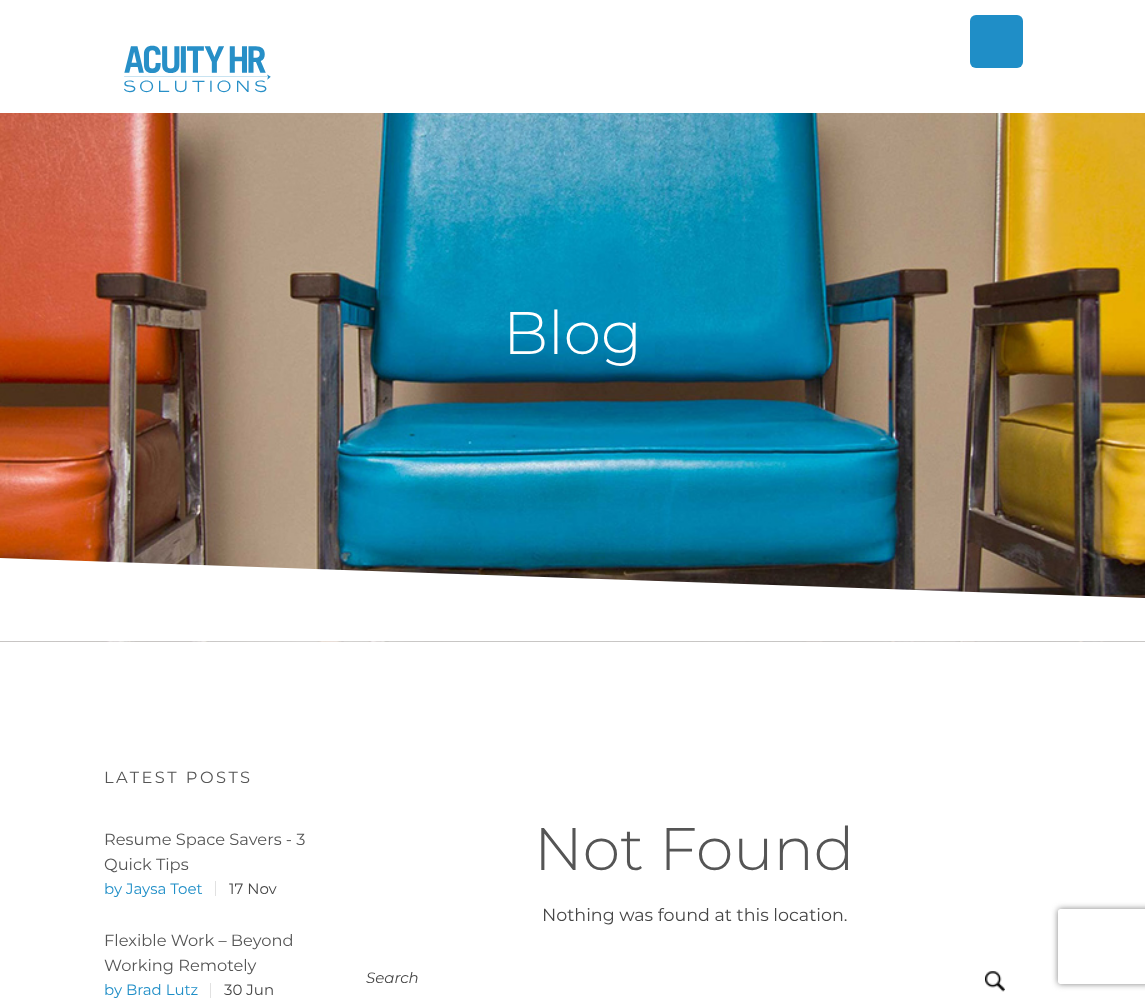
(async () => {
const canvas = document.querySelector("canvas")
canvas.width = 1145
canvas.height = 1001
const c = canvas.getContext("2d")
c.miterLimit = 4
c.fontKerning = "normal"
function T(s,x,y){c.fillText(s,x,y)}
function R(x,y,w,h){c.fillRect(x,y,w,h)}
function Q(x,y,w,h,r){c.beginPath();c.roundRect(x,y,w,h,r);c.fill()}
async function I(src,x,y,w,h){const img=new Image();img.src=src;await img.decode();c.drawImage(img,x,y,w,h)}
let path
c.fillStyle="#fff"
R(0,0,1145,1001)
await I("1.png",124,45,147,48)
c.fillStyle="#1f8ec7"
Q(970,15,53,53,6)
await I("2.png",0,113,1145,529)
c.font="300 60px Montserrat"
c.fillStyle="#fff"
T("Blog",503,354)
c.save()
c.beginPath()
c.rect(0,113,1145,528)
c.clip()
path = new Path2D("M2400 642h-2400v-84z")
c.fill(path)
c.restore()
c.letterSpacing="2.5px"
c.font="16.25px Montserrat"
c.fillStyle="#555"
T("LATEST POSTS",104,783)
c.letterSpacing="0px"
T("Resume Space Savers - 3",104,845)
T("Quick Tips",104,870)
c.font="15px Montserrat"
c.fillStyle="#1f8ec7"
T("by Jaysa Toet",104,894)
c.fillStyle="#e1e1e1"
R(215,881,1,15)
c.fillStyle="#464646"
T("17 Nov",229,894)
c.font="16.25px Montserrat"
c.fillStyle="#555"
T("Flexible Work – Beyond",104,946)
T("Working Remotely",104,971)
c.font="15px Montserrat"
c.fillStyle="#1f8ec7"
T("by Brad Lutz",104,995)
c.fillStyle="#e1e1e1"
R(210,983,1,15)
c.fillStyle="#464646"
T("30 Jun",224,995)
c.font="300 60px Montserrat"
c.fillStyle="#555"
T("Not Found",534,870)
c.font="17.5px Montserrat"
c.fillStyle="#464646"
T("Nothing was found at this location.",542,921)
c.font="italic 100 15px Montserrat"
T("Search",366,983)
await I("3.png",985,971,20,21)
c.save()
path = new Path2D("M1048 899h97v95h-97zm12.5 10h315c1.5 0 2.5 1 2.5 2.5v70c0 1.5-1 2.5-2.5 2.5h-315c-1.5 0-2.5-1-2.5-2.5v-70c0-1.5 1-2.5 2.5-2.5z")
c.clip(path,"evenodd")
c.fillStyle="#808080"
c.filter="blur(3px)"
c.beginPath()
c.roundRect(1058,909,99,75,2.5)
c.fill()
c.filter="none"
c.restore()
})()
